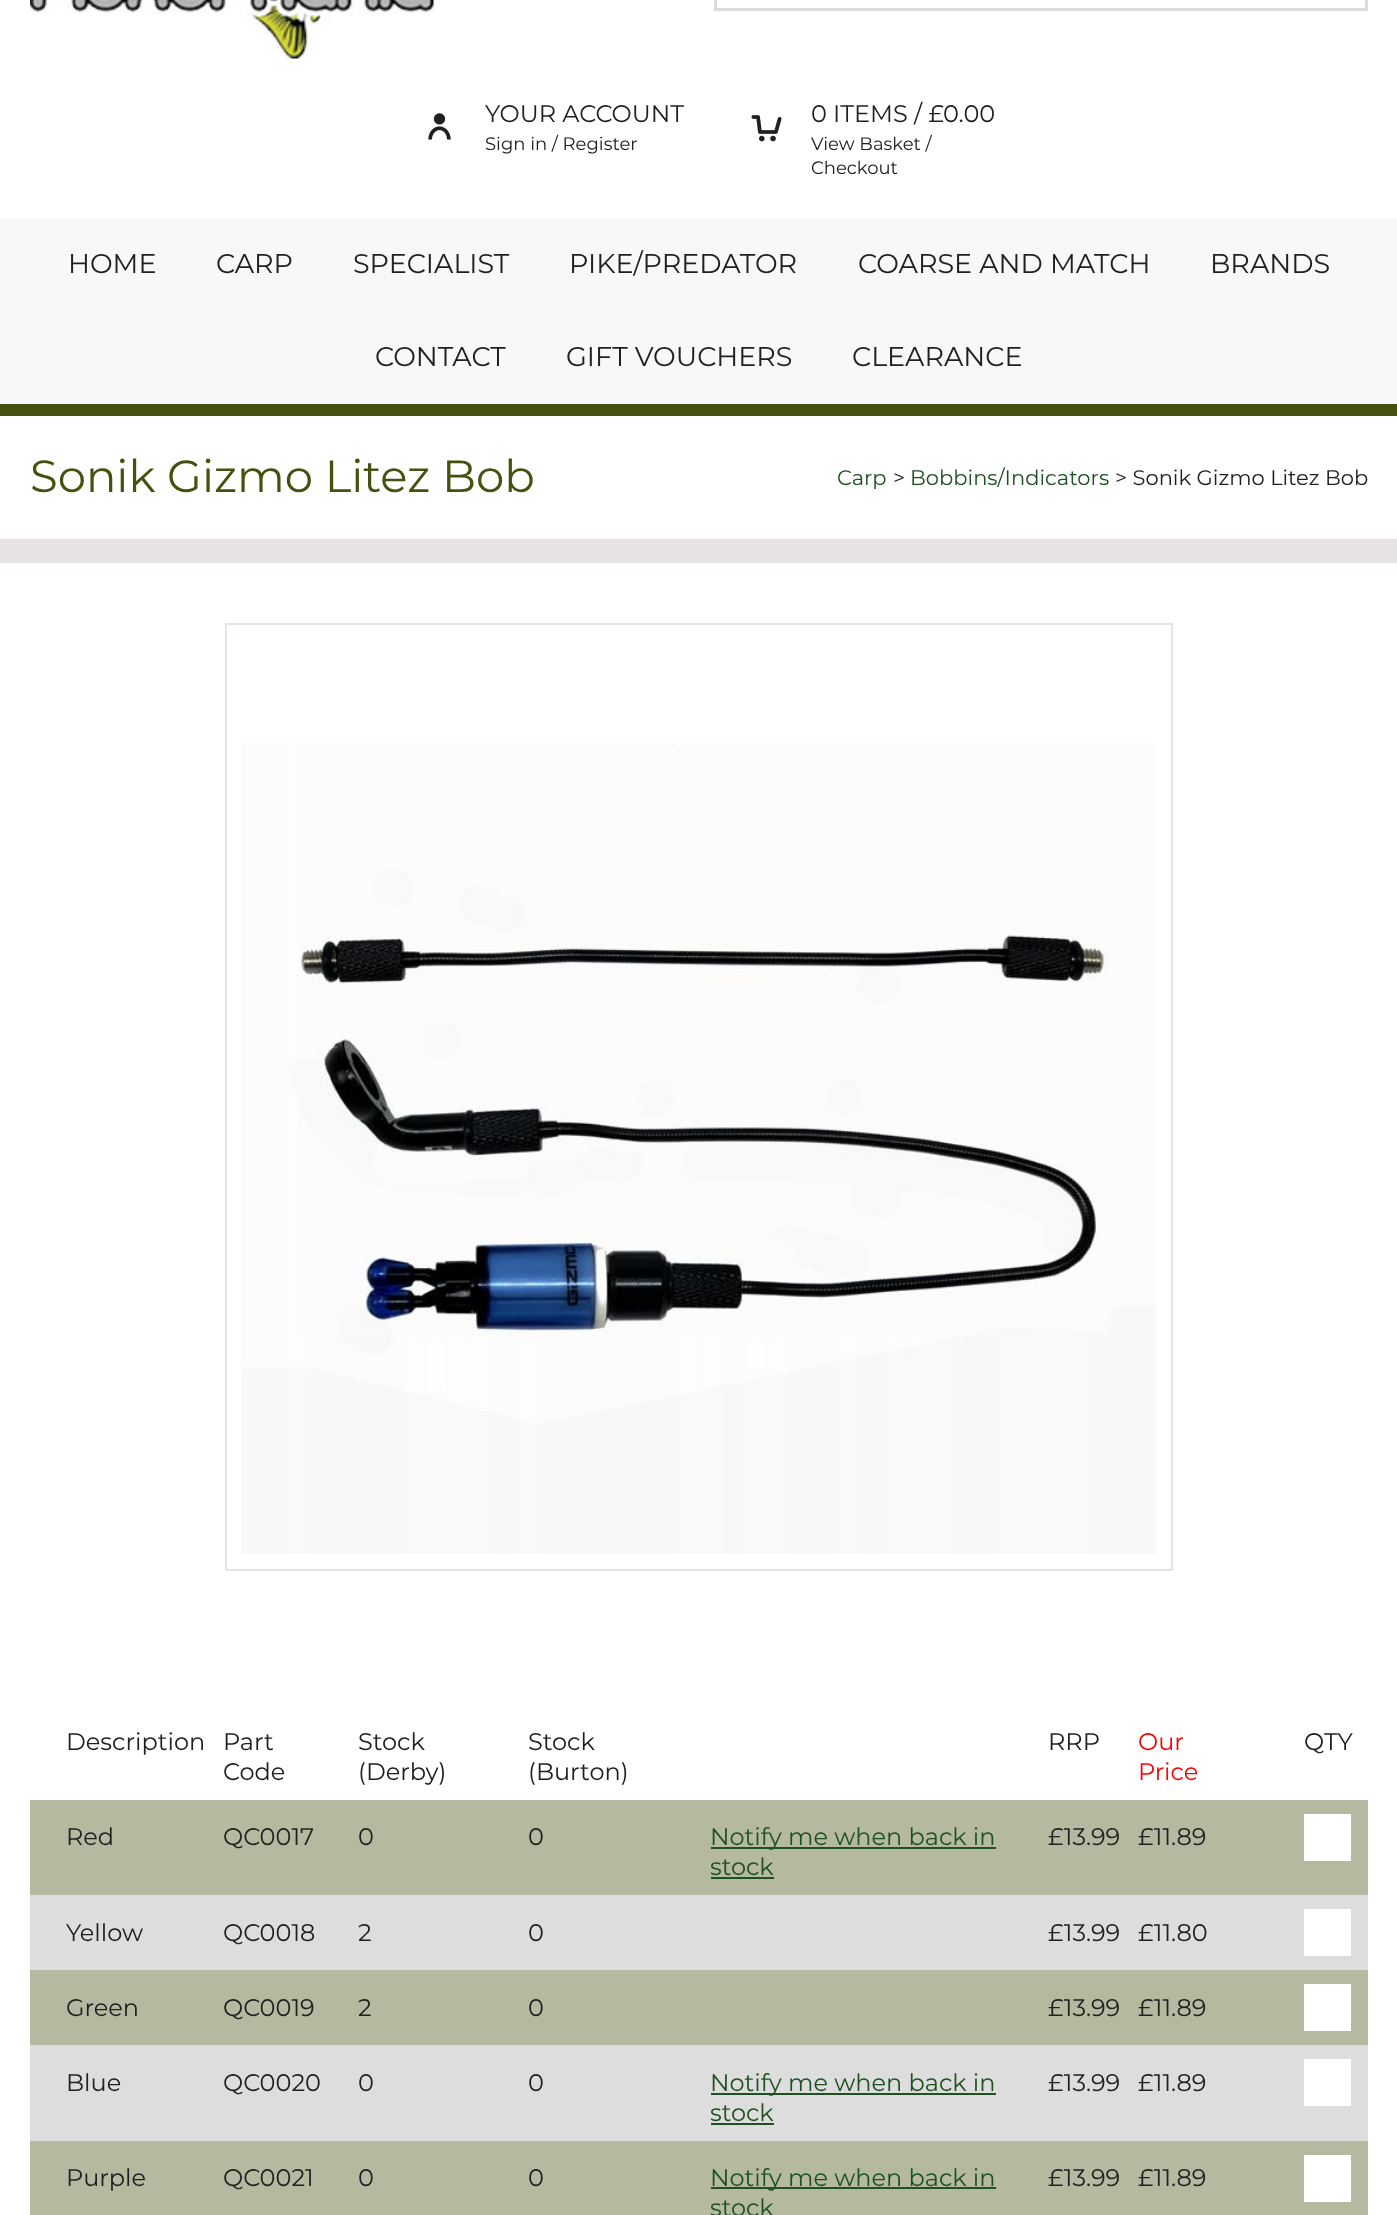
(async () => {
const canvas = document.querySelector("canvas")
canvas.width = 1397
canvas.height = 2215
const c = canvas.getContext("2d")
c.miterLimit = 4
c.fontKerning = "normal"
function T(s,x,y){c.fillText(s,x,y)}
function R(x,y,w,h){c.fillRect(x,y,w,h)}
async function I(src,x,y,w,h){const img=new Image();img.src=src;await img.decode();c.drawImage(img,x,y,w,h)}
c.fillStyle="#fff"
R(0,0,1397,2215)
await I("1.png",30,0,404,59)
c.beginPath()
c.rect(715.5,-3.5,651,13)
c.strokeStyle="#dcdcdc"
c.lineWidth=3
c.stroke()
await I("2.png",428,113,23,27)
c.font="24px Montserrat"
c.fillStyle="#202020"
T("YOUR ACCOUNT",485,122)
c.font="18px Montserrat"
T("Sign in / Register",485,150)
await I("3.png",751,115,31,27)
c.font="24px Montserrat"
T("0",811,122)
T("ITEMS / £",833,122)
T("0.00",943,122)
c.font="18px Montserrat"
T("View Basket /",811,150)
T("Checkout",811,174)
c.fillStyle="#f8f8f8"
R(0,218,1397,186)
c.font="27px Montserrat"
c.fillStyle="#202020"
T("HOME",68,273)
T("CARP",216,273)
T("SPECIALIST",353,273)
T("PIKE/PREDATOR",569,273)
T("COARSE AND MATCH",858,273)
T("BRANDS",1210,273)
T("CONTACT",375,366)
T("GIFT VOUCHERS",566,366)
T("CLEARANCE",852,366)
c.fillStyle="#47510f"
R(0,404,1397,12)
c.fillStyle="#e8e3e3"
R(0,539,1397,24)
c.font="45px Montserrat"
c.fillStyle="#47510f"
T("Sonik Gizmo Litez Bob",30,492)
c.font="21px Montserrat"
c.fillStyle="#1e5121"
T("Carp",837,485)
c.fillStyle="#202020"
T(">",893,485)
c.fillStyle="#1e5121"
T("Bobbins/Indicators",910,485)
c.fillStyle="#202020"
T("> Sonik Gizmo Litez Bob",1115,485)
c.strokeStyle="#e8e3e3"
c.lineWidth=2
c.strokeRect(226,624,946,946)
await I("4.png",241,743,915,811)
c.font="24px Montserrat"
T("Description",66,1750)
T("Part",223,1750)
T("Code",223,1780)
T("Stock",358,1750)
T("(Derby)",358,1780)
T("Stock",528,1750)
T("(Burton)",528,1780)
T("RRP",1048,1750)
c.fillStyle="#f00"
T("Our",1138,1750)
T("Price",1138,1780)
c.fillStyle="#202020"
T("QTY",1304,1750)
c.fillStyle="#b5b9a0"
R(30,1800,1338,95)
c.fillStyle="#202020"
T("Red",66,1845)
T("QC0017",223,1845)
T("0",358,1845)
T("0",528,1845)
c.fillStyle="#1e5121"
R(711,1847,285,2)
T("Notify me when back in",710,1845)
T("stock",710,1875)
R(711,1877,63,2)
c.fillStyle="#202020"
T("£13.99",1048,1845)
T("£11.89",1138,1845)
c.fillStyle="#fff"
R(1304,1814,47,47)
c.fillStyle="#ddd"
R(30,1895,1338,75)
c.fillStyle="#202020"
T("Yellow",66,1941)
T("QC0018",223,1941)
T("2",358,1941)
T("0",528,1941)
T("£13.99",1048,1941)
T("£11.80",1138,1941)
c.fillStyle="#fff"
R(1304,1909,47,47)
c.fillStyle="#b5b9a0"
R(30,1970,1338,75)
c.fillStyle="#202020"
T("Green",66,2016)
T("QC0019",223,2016)
T("2",358,2016)
T("0",528,2016)
T("£13.99",1048,2016)
T("£11.89",1138,2016)
c.fillStyle="#fff"
R(1304,1984,47,47)
c.fillStyle="#ddd"
R(30,2045,1338,96)
c.fillStyle="#202020"
T("Blue",66,2091)
T("QC0020",223,2091)
T("0",358,2091)
T("0",528,2091)
c.fillStyle="#1e5121"
R(711,2093,285,2)
T("Notify me when back in",710,2091)
T("stock",710,2121)
R(711,2123,63,2)
c.fillStyle="#202020"
T("£13.99",1048,2091)
T("£11.89",1138,2091)
c.fillStyle="#fff"
R(1304,2059,47,47)
c.fillStyle="#b5b9a0"
R(30,2141,1338,74)
c.fillStyle="#202020"
T("Purple",66,2186)
T("QC0021",223,2186)
T("0",358,2186)
T("0",528,2186)
c.fillStyle="#1e5121"
R(711,2187,285,2)
T("Notify me when back in",710,2186)
T("stock",710,2216)
c.fillStyle="#202020"
T("£13.99",1048,2186)
T("£11.89",1138,2186)
c.fillStyle="#fff"
R(1304,2155,47,47)
})()
